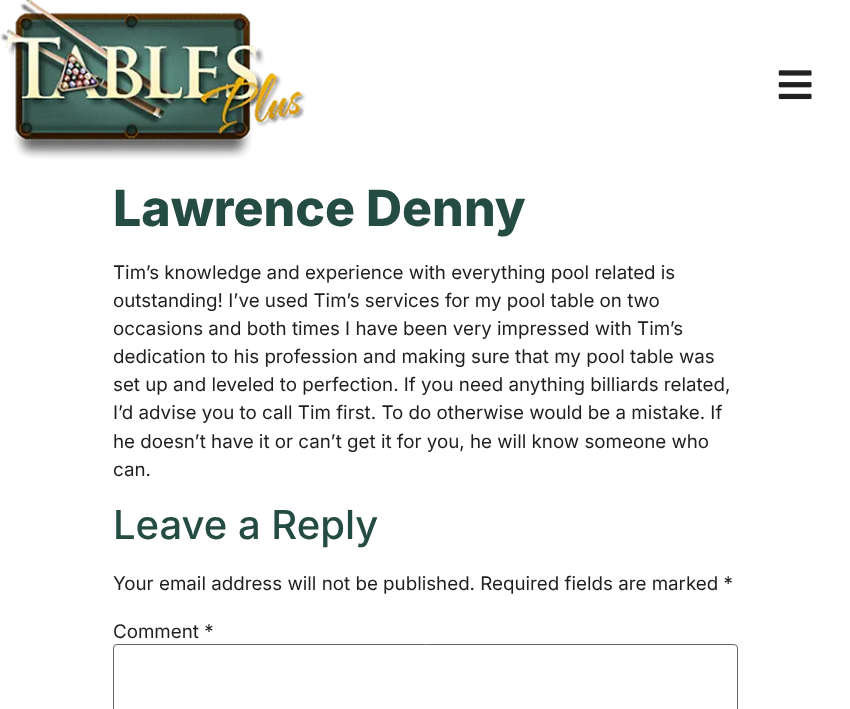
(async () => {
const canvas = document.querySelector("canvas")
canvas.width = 850
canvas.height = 709
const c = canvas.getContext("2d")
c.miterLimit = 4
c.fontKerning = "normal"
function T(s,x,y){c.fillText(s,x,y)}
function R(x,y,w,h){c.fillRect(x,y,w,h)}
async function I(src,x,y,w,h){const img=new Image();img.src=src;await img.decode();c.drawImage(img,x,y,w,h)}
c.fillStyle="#fff"
R(0,0,850,709)
await I("1.png",0,0,306,159)
await I("2.png",778,70,34,30)
c.font="800 50px Inter"
c.fillStyle="#254c43"
T("Lawrence Denny",113,226)
c.font="18.75px Inter"
c.fillStyle="#1f1f1f"
T("Tim’s knowledge and experience with everything pool related is",113,279)
T("outstanding! I’ve used Tim’s services for my pool table on two",113,307)
T("occasions and both times I have been very impressed with Tim’s",113,335)
T("dedication to his profession and making sure that my pool table was",113,363)
T("set up and leveled to perfection. If you need anything billiards related,",113,391)
T("I’d advise you to call Tim first. To do otherwise would be a mistake. If",113,419)
T("he doesn’t have it or can’t get it for you, he will know someone who",113,448)
T("can.",113,476)
c.font="500 40px Inter"
c.fillStyle="#254c43"
T("Leave a Reply",113,539)
c.font="18.75px Inter"
c.fillStyle="#1f1f1f"
T("Your email address will not be published. Required fields are marked *",113,590)
T("Comment *",113,638)
c.beginPath()
c.roundRect(113.5,644.5,624,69,3.5)
c.strokeStyle="#666"
c.stroke()
})()
